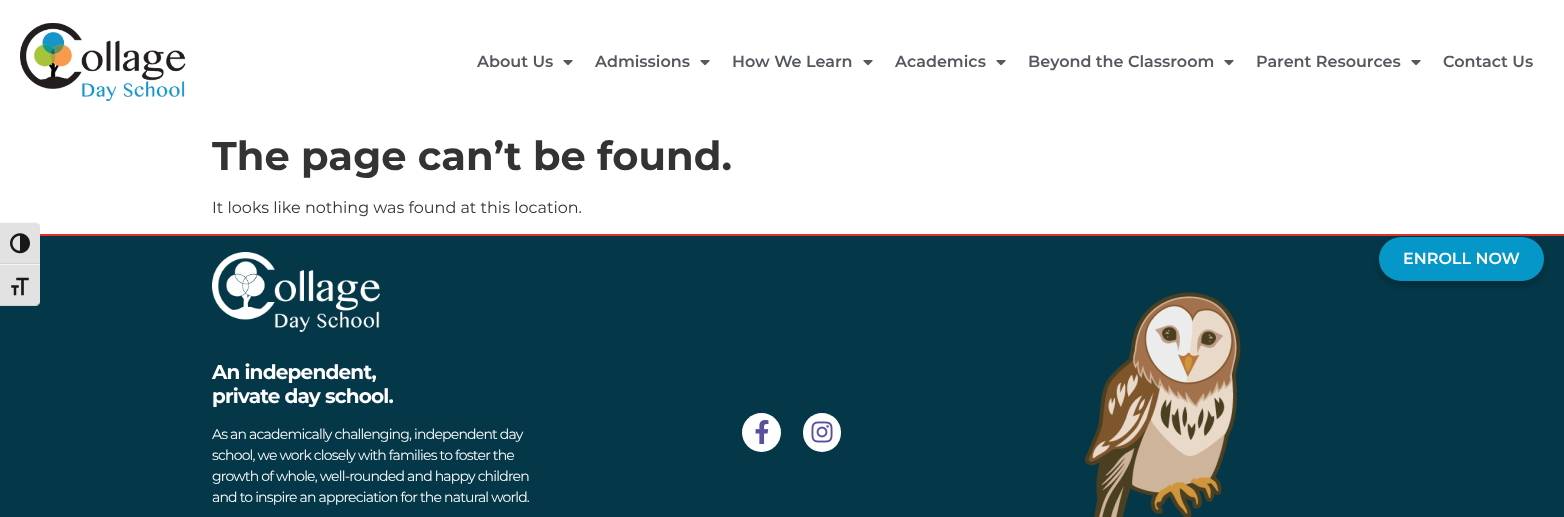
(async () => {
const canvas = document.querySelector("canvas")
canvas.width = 1564
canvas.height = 517
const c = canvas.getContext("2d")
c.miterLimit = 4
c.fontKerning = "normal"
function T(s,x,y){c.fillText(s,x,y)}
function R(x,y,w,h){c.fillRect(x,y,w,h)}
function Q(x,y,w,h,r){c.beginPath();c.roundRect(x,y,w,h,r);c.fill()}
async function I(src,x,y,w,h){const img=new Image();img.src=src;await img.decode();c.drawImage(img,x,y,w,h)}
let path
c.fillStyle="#fff"
R(0,0,1564,517)
await I("1.png",20,23,166,78)
c.font="100 16px Montserrat"
c.fillStyle="#54595f"
T("About Us",477,67)
await I("2.png",563,60,10,6)
T("Admissions",595,67)
await I("2.png",700,60,10,6)
T("How We Learn",732,67)
await I("2.png",863,60,10,6)
T("Academics",895,67)
await I("2.png",996,60,10,6)
T("Beyond the Classroom",1028,67)
await I("2.png",1224,60,10,6)
T("Parent Resources",1256,67)
await I("2.png",1411,60,10,6)
T("Contact Us",1443,67)
c.font="bold 40px Montserrat"
c.fillStyle="#333"
T("The page can’t be found.",212,170)
c.font="16px Montserrat"
T("It looks like nothing was found at this location.",212,213)
c.fillStyle="#043747"
R(0,236,1564,281)
c.fillStyle="#e2e2e2"
path = new Path2D("M0 223h36c2 0 4 1 4 3v37h-40z")
c.fill(path)
c.fillStyle="#f5f5f5"
path = new Path2D("M0 222v1h36c2 0 4 1 4 3c0-2-2-4-4-4z")
c.fill(path)
c.fillStyle="#d2d2d2"
R(0,263,40,1)
await I("3.png",10,233,20,21)
c.fillStyle="#e2e2e2"
path = new Path2D("M0 265h40v37c0 2-2 3-4 3h-36z")
c.fill(path)
c.fillStyle="#f5f5f5"
R(0,264,40,1)
c.fillStyle="#d2d2d2"
path = new Path2D("M0 305v1h36c2 0 4-2 4-4c0 2-2 3-4 3z")
c.fill(path)
await I("4.png",11,277,18,19)
c.fillStyle="#e23125"
R(40,234,1524,2)
c.fillStyle="#00000033"
c.filter="blur(3px)"
c.beginPath()
c.roundRect(1379,241,165,44,22)
c.fill()
c.filter="none"
c.fillStyle="#0597c7"
Q(1379,237,165,44,22)
c.font="100 16px Montserrat"
c.fillStyle="#fff"
T("ENROLL NOW",1403,264)
await I("5.png",212,252,168,80)
c.letterSpacing="-0.8px"
c.font="bold 20px Montserrat"
T("An independent,",212,379)
T("private day school.",212,403)
c.font="14px Montserrat"
T("As an academically challenging, independent day",212,439)
T("school, we work closely with families to foster the",212,460)
T("growth of whole, well-rounded and happy children",212,481)
T("and to inspire an appreciation for the natural world.",212,502)
c.beginPath()
c.arc(761.5,432.5,19.5,0,7)
c.fill()
await I("6.png",755,420,14,24)
Q(803,413,38,39,19)
await I("7.png",811,421,22,22)
await I("8.png",1084,292,157,225)
})()
